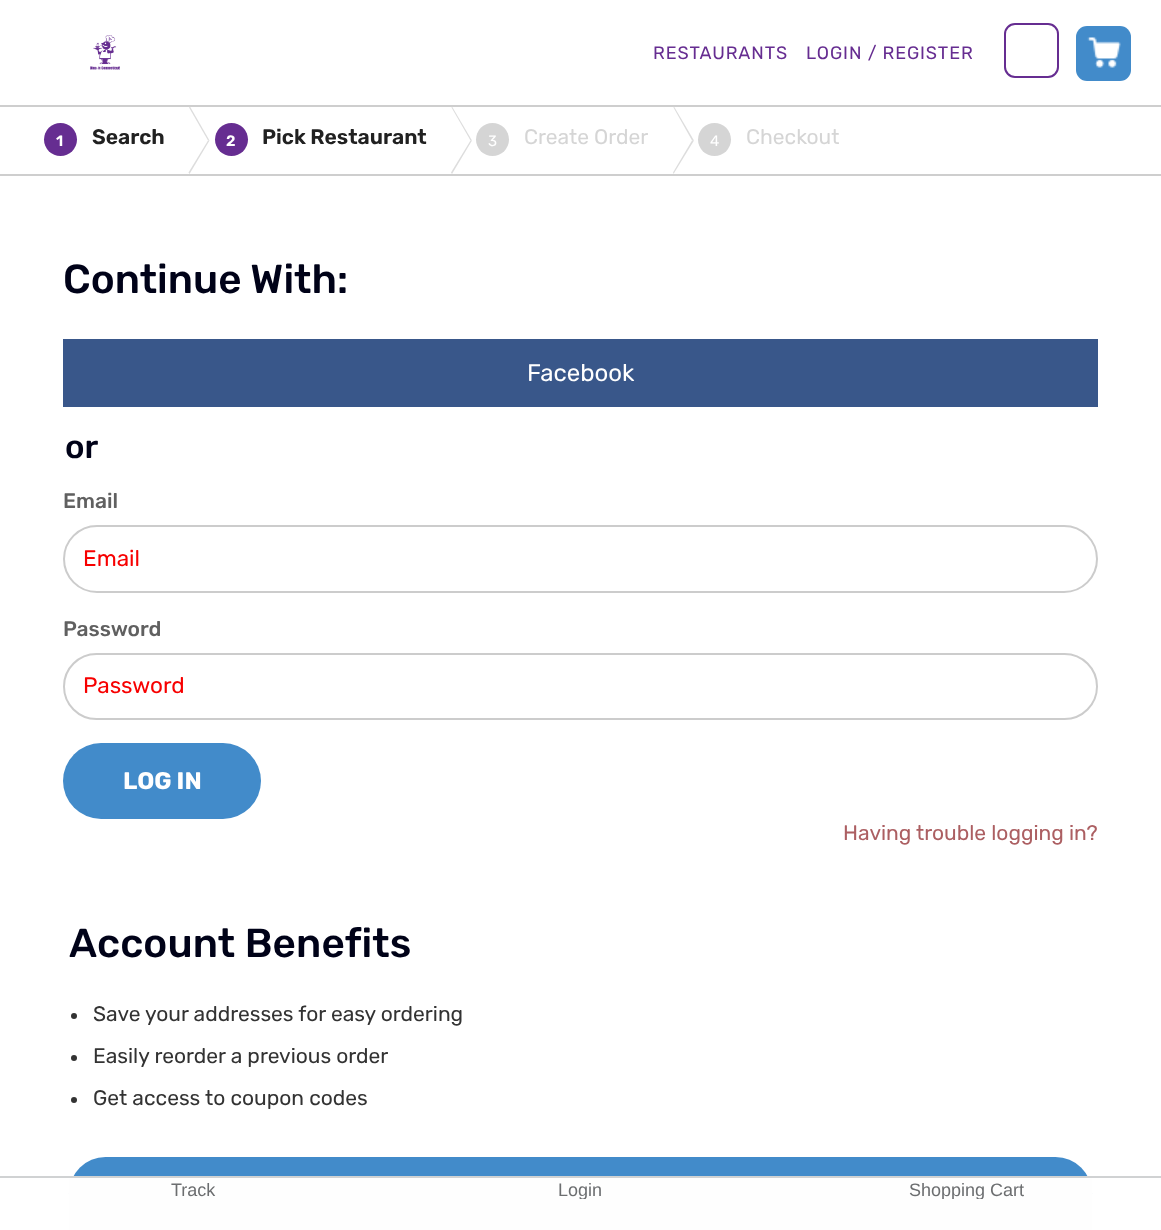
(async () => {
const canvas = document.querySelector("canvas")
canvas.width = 1161
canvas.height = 1230
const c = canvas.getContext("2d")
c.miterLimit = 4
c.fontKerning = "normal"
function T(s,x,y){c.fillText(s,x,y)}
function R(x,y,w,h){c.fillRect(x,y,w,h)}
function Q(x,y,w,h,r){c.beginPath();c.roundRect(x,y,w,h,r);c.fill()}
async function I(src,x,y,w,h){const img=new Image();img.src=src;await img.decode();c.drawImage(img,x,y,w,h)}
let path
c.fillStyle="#fff"
R(0,0,1161,1230)
await I("1.png",90,35,30,35)
c.letterSpacing="0.9px"
c.font="18px Rubik"
c.fillStyle="#662d91"
T("RESTAURANTS",653,59)
T("LOGIN / REGISTER",806,59)
c.beginPath()
c.roundRect(1005,24,53,53,10)
c.strokeStyle="#662d91"
c.lineWidth=2
c.stroke()
c.fillStyle="#428bca"
Q(1076,26,55,55,11)
await I("2.png",1087,37,34,31)
c.fillStyle="#cecece"
R(0,105,1161,2)
R(0,174,1161,2)
c.fillStyle="#662d91"
c.beginPath()
c.arc(60.5,139.5,16.5,0,7)
c.fill()
c.letterSpacing="0px"
c.font="600 15px Rubik"
c.fillStyle="#fff"
T("1",56,146)
c.font="600 21px Rubik"
c.fillStyle="#212121"
T("Search",92,144)
c.fillStyle="#ddd"
path = new Path2D("M190 106.5l19.5 34h-1.5l-19-33z")
c.fill(path)
path = new Path2D("M209.5 140.5l-20 33.5l-1-1.5l19.5-32z")
c.fill(path)
c.fillStyle="#662d91"
c.beginPath()
c.arc(231.5,139.5,16.5,0,7)
c.fill()
c.font="600 15px Rubik"
c.fillStyle="#fff"
T("2",226,146)
c.font="600 21px Rubik"
c.fillStyle="#212121"
T("Pick Restaurant",262,144)
c.fillStyle="#ddd"
path = new Path2D("M452 106.5l20 34h-1.5l-19-33z")
c.fill(path)
path = new Path2D("M472 140.5l-20 33.5l-1-1.5l19.5-32z")
c.fill(path)
c.fillStyle="#d5d5d5"
c.beginPath()
c.arc(492.5,139.5,16.5,0,7)
c.fill()
c.font="15px Rubik"
c.fillStyle="#fff"
T("3",488,146)
c.font="21px Rubik"
c.fillStyle="#d5d5d5"
T("Create Order",524,144)
c.fillStyle="#ddd"
path = new Path2D("M674 106.5l20 34h-2l-18.5-33z")
c.fill(path)
path = new Path2D("M694 140.5l-20.5 33.5l-.5-1.5l19-32z")
c.fill(path)
c.fillStyle="#d5d5d5"
c.beginPath()
c.arc(714.5,139.5,16.5,0,7)
c.fill()
c.font="15px Rubik"
c.fillStyle="#fff"
T("4",710,146)
c.font="21px Rubik"
c.fillStyle="#d5d5d5"
T("Checkout",746,144)
c.font="500 40.5px Rubik"
c.fillStyle="#000218"
T("Continue With:",63,293)
c.fillStyle="#39578a"
R(63,339,1035,68)
c.font="24px Rubik"
c.fillStyle="#fff"
T("Facebook",527,381)
c.font="500 33px Rubik"
c.fillStyle="#000218"
T("or",65,458)
c.font="500 21px Rubik"
c.fillStyle="#606060"
T("Email",63,508)
c.beginPath()
c.roundRect(64,526,1033,66,33)
c.strokeStyle="#ccc"
c.stroke()
c.font="22.5px Rubik"
c.fillStyle="#f70000"
T("Email",83,566)
c.font="500 21px Rubik"
c.fillStyle="#606060"
T("Password",63,636)
c.beginPath()
c.roundRect(64,654,1033,65,32.5)
c.stroke()
c.font="22.5px Rubik"
c.fillStyle="#f70000"
T("Password",83,693)
c.fillStyle="#428bca"
Q(63,743,198,76,38)
c.font="bold 24px Rubik"
c.fillStyle="#fff"
T("LOG IN",123,789)
c.font="21px Rubik"
c.fillStyle="#ac5f62"
T("Having trouble logging in?",843,840)
c.letterSpacing="0.1px"
c.font="500 40.5px Rubik"
c.fillStyle="#000218"
T("Account Benefits",69,957)
c.fillStyle="#333"
c.beginPath()
c.arc(74,1016,3,0,7)
c.fill()
c.letterSpacing="0px"
c.font="21px Rubik"
T("Save your addresses for easy ordering",93,1021)
c.beginPath()
c.arc(74,1058,3,0,7)
c.fill()
T("Easily reorder a previous order",93,1063)
c.beginPath()
c.arc(74,1100,3,0,7)
c.fill()
T("Get access to coupon codes",93,1105)
c.fillStyle="#428bca"
Q(69,1157,1023,73,36.5)
c.fillStyle="#fefefe"
R(69,1178,1023,52)
c.fillStyle="#d0d2d3"
R(0,1176,1161,2)
c.font="18px Liberation Sans"
c.fillStyle="#6c6e70"
T("Track",171,1196)
c.save()
c.beginPath()
c.rect(396,1181,368,18)
c.clip()
T("Login",558,1196)
c.restore()
c.save()
c.beginPath()
c.rect(773,1181,387,18)
c.clip()
T("Shopping Cart",909,1196)
c.restore()
})()
